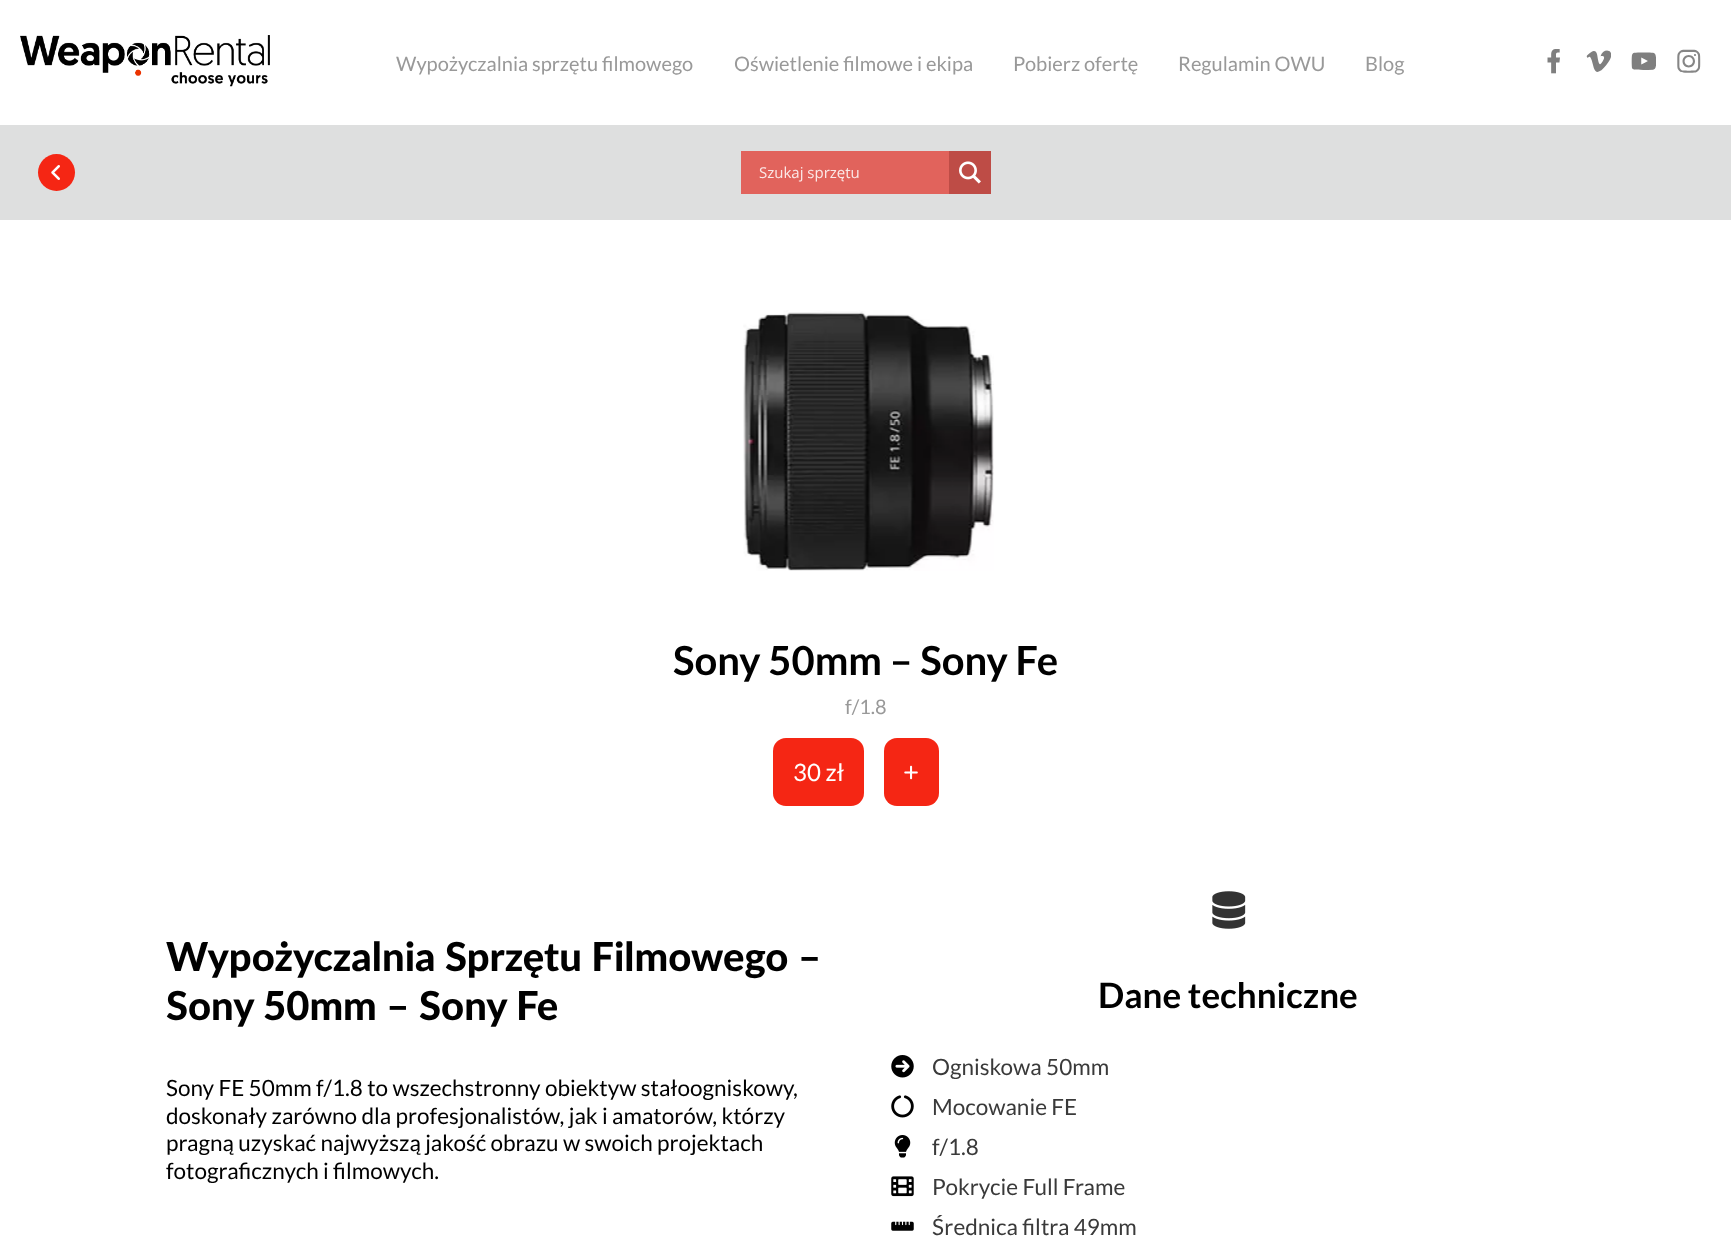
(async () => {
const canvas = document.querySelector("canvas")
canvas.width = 1731
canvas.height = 1246
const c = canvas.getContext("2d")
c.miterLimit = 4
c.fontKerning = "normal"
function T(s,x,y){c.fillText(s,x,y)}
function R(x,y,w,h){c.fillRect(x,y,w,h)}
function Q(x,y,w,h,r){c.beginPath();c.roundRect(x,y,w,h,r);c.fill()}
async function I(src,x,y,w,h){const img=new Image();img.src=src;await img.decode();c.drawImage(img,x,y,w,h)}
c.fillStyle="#fff"
R(0,0,1731,1246)
await I("1.png",20,35,250,52)
c.font="20px Lato"
c.fillStyle="#999"
T("Wypożyczalnia sprzętu filmowego",396,71)
T("Oświetlenie filmowe i ekipa",734,71)
T("Pobierz ofertę",1013,71)
T("Regulamin OWU",1178,71)
T("Blog",1365,71)
await I("2.png",1547,49,13,25)
await I("3.png",1586,50,25,22)
await I("4.png",1631,52,25,18)
await I("5.png",1677,49,24,24)
c.fillStyle="#dedfdf"
R(0,125,1731,95)
c.fillStyle="#f52614"
c.beginPath()
c.arc(56.5,172.5,18.5,0,7)
c.fill()
await I("6.png",51,165,9,15)
c.fillStyle="#e1635c"
R(741,151,208,43)
c.font="15px Open Sans"
c.fillStyle="#fbe8e7"
T("Szukaj sprzętu",759,178)
c.fillStyle="#be4c46"
R(949,151,42,43)
await I("7.png",959,161,22,23)
await I("8.png",743,310,251,261)
c.font="bold 40px Lato"
c.fillStyle="#000"
T("Sony 50mm – Sony Fe",673,675)
c.font="20px Lato"
c.fillStyle="#999"
T("f/1.8",845,714)
c.fillStyle="#f52614"
Q(773,738,91,68,13)
c.font="24px Lato"
c.fillStyle="#fff"
T("30 zł",793,781)
c.fillStyle="#f52614"
Q(884,738,55,68,13)
await I("9.png",904,765,14,15)
c.font="900 40px Lato"
c.fillStyle="#000"
T("Wypożyczalnia Sprzętu Filmowego –",166,971)
T("Sony 50mm – Sony Fe",166,1020)
c.font="22.5px Lato"
T("Sony FE 50mm f/1.8 to wszechstronny obiektyw stałoogniskowy,",166,1096)
T("doskonały zarówno dla profesjonalistów, jak i amatorów, którzy",166,1124)
T("pragną uzyskać najwyższą jakość obrazu w swoich projektach",166,1151)
T("fotograficznych i filmowych.",166,1179)
await I("10.png",1212,891,34,38)
c.font="bold 35px Lato"
T("Dane techniczne",1098,1008)
await I("11.png",891,1055,23,23)
c.font="22.5px Lato"
c.fillStyle="#3a3a3a"
T("Ogniskowa 50mm",932,1075)
await I("12.png",891,1095,23,23)
T("Mocowanie FE",932,1115)
await I("13.png",894,1135,17,23)
T("f/1.8",932,1155)
await I("14.png",891,1176,23,21)
T("Pokrycie Full Frame",932,1195)
await I("15.png",891,1221,23,10)
T("Średnica filtra 49mm",932,1235)
})()
